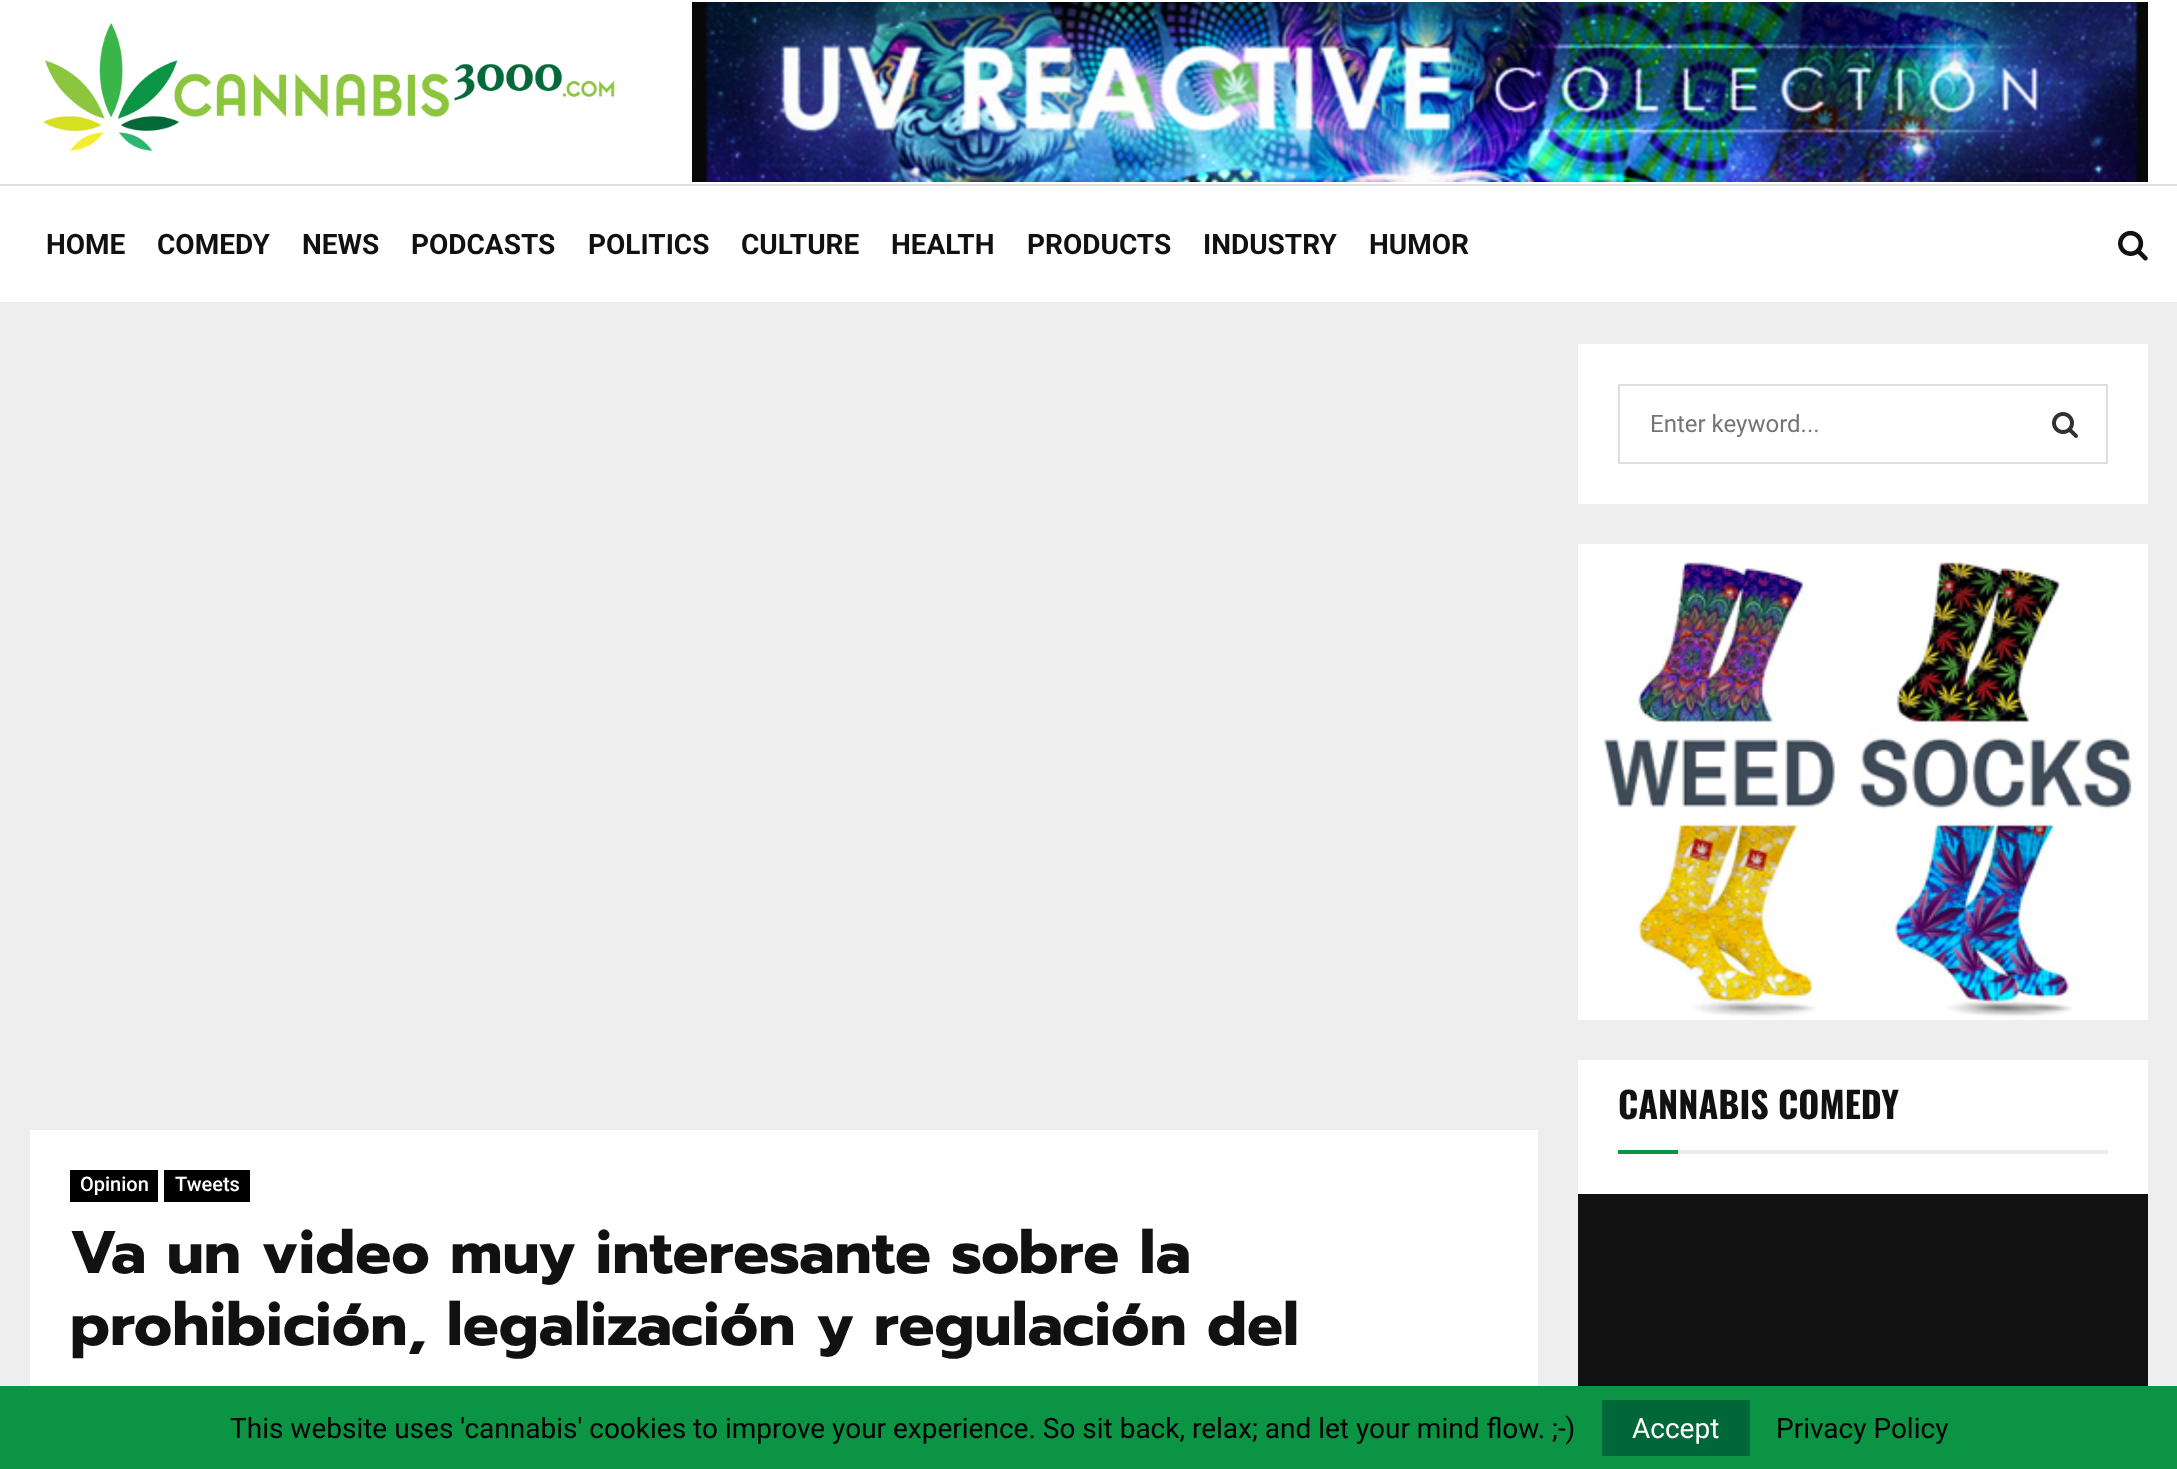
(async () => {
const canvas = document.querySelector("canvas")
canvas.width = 2177
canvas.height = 1469
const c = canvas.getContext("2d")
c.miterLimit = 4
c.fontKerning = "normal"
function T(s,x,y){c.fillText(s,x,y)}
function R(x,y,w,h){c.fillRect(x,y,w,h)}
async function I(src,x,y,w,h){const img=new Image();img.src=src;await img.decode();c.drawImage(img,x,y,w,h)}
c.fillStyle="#eee"
R(0,0,2177,1469)
c.fillStyle="#fff"
R(0,0,2177,184)
await I("1.png",42,23,573,128)
await I("2.png",692,2,1456,180)
R(0,186,2177,116)
c.fillStyle="#dedede"
R(0,184,2177,2)
c.font="bold 28px Roboto"
c.fillStyle="#111"
T("HOME",46,254)
T("COMEDY",157,254)
T("NEWS",302,254)
T("PODCASTS",411,254)
T("POLITICS",588,254)
T("CULTURE",741,254)
T("HEALTH",891,254)
T("PRODUCTS",1027,254)
T("INDUSTRY",1203,254)
T("HUMOR",1369,254)
await I("3.png",2118,230,30,31)
c.fillStyle="#fff"
R(1578,344,570,160)
c.strokeStyle="#dedede"
c.lineWidth=2
c.strokeRect(1619,385,488,78)
c.font="24px Roboto"
c.fillStyle="#757575"
T("Enter keyword...",1650,432)
await I("4.png",2052,412,26,26)
await I("5.png",1578,544,570,476)
c.fillStyle="#fff"
R(1578,1060,570,134)
c.fillStyle="#ececec"
R(1678,1150,430,4)
c.font="bold 36px Oswald"
c.fillStyle="#111"
T("CANNABIS COMEDY",1618,1119)
c.fillStyle="#0b9444"
R(1618,1150,60,4)
c.fillStyle="#111"
R(1578,1194,570,192)
c.fillStyle="#fff"
R(30,1130,1508,256)
c.fillStyle="#000"
R(70,1170,88,32)
c.font="500 20px Roboto"
c.fillStyle="#fff"
T("Opinion",80,1191)
c.fillStyle="#000"
R(164,1170,86,32)
c.fillStyle="#fff"
T("Tweets",175,1191)
c.font="bold 60px Prompt"
c.fillStyle="#111"
T("Va un video muy interesante sobre la",70,1273)
T("prohibición, legalización y regulación del",70,1345)
c.fillStyle="#0b9444"
R(0,1386,2177,83)
c.font="28px Roboto"
c.fillStyle="#000"
T("This website uses 'cannabis' cookies to improve your experience. So sit back, relax; and let your mind flow. ;-)",230,1438)
c.fillStyle="#006838"
R(1602,1400,148,56)
c.fillStyle="#fff"
T("Accept",1632,1438)
c.fillStyle="#000"
T("Privacy Policy",1776,1438)
})()
